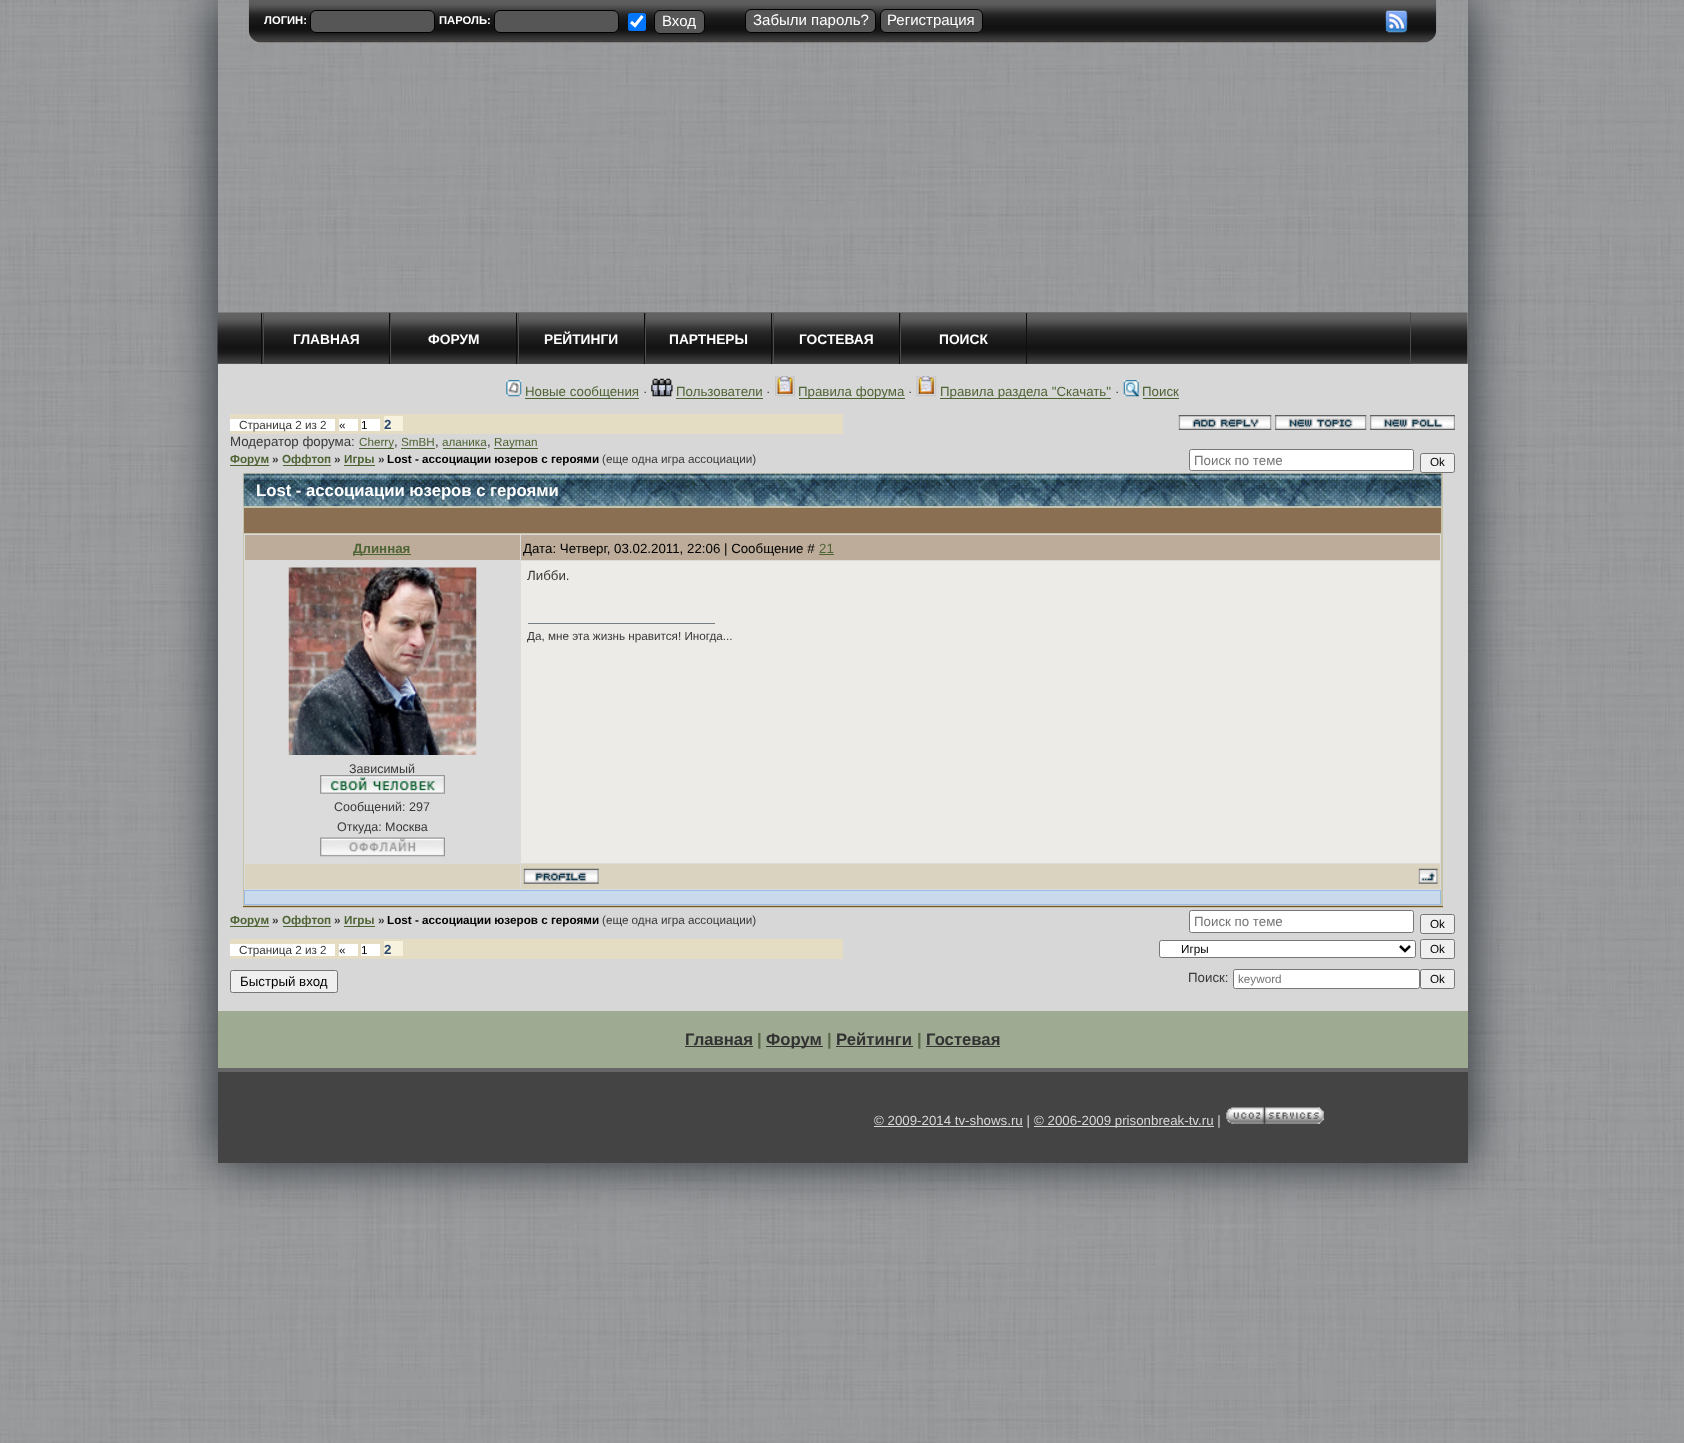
(async () => {
const canvas = document.querySelector("canvas")
canvas.width = 1684
canvas.height = 1443
const c = canvas.getContext("2d")
c.miterLimit = 4
c.fontKerning = "normal"
function T(s,x,y){c.fillText(s,x,y)}
function R(x,y,w,h){c.fillRect(x,y,w,h)}
function Q(x,y,w,h,r){c.beginPath();c.roundRect(x,y,w,h,r);c.fill()}
async function I(src,x,y,w,h){const img=new Image();img.src=src;await img.decode();c.drawImage(img,x,y,w,h)}
let path
c.fillStyle="#fff"
R(0,0,1684,1443)
await I("1.png",0,0,1684,1443)
c.save()
path = new Path2D("M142 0h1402v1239h-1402zm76 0h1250v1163h-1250z")
c.clip(path,"evenodd")
c.fillStyle="#232a30"
c.filter="blur(25px)"
c.beginPath()
c.rect(218,0,1250,1163)
c.fill()
c.filter="none"
c.restore()
await I("2.png",248,0,1189,43)
c.font="bold 11.25px Liberation Sans"
T("ЛОГИН:",264,24)
c.fillStyle="#565656"
c.beginPath()
c.roundRect(310.5,10.5,124,22,5.5)
c.fill()
c.strokeStyle="#000"
c.stroke()
c.fillStyle="#fff"
T("ПАРОЛЬ:",439,24)
c.fillStyle="#565656"
c.beginPath()
c.roundRect(494.5,10.5,124,22,5.5)
c.fill()
c.stroke()
c.fillStyle="#0075ff"
Q(628,13,18,18,2.5)
path = new Path2D("M631 22l4 3.5l7.5-9.5")
c.strokeStyle="#fff"
c.lineWidth=3
c.stroke(path)
c.fillStyle="#565656"
c.beginPath()
c.roundRect(654.5,10.5,50,23,5.5)
c.fill()
c.strokeStyle="#000"
c.lineWidth=1
c.stroke()
c.font="15px Liberation Sans"
c.fillStyle="#fff"
T("Вход",662,26)
c.fillStyle="#565656"
c.beginPath()
c.roundRect(745.5,9.5,130,23,5.5)
c.fill()
c.stroke()
c.fillStyle="#fff"
T("Забыли пароль?",753,25)
c.fillStyle="#565656"
c.beginPath()
c.roundRect(880.5,9.5,102,23,5.5)
c.fill()
c.stroke()
c.fillStyle="#fff"
T("Регистрация",887,25)
await I("3.png",1385,10,23,23)
await I("4.png",217,312,1251,52)
await I("5.png",261,312,1151,52)
c.fillStyle="#4c4c4c"
R(1410,313,1,51)
c.fillStyle="#0f0f0f"
R(261,313,1,51)
R(389,313,1,51)
c.fillStyle="#4c4c4c"
R(263,313,1,51)
c.font="bold 13.75px Liberation Sans"
c.fillStyle="#fff"
T("ГЛАВНАЯ",293,344)
c.fillStyle="#0f0f0f"
R(516,313,1,51)
c.fillStyle="#4c4c4c"
R(390,313,1,51)
c.fillStyle="#fff"
T("ФОРУМ",428,344)
c.fillStyle="#0f0f0f"
R(644,313,1,51)
c.fillStyle="#4c4c4c"
R(518,313,1,51)
c.fillStyle="#fff"
T("РЕЙТИНГИ",544,344)
c.fillStyle="#0f0f0f"
R(771,313,1,51)
c.fillStyle="#4c4c4c"
R(645,313,1,51)
c.fillStyle="#fff"
T("ПАРТНЕРЫ",669,344)
c.fillStyle="#0f0f0f"
R(899,313,1,51)
c.fillStyle="#4c4c4c"
R(773,313,1,51)
c.fillStyle="#fff"
T("ГОСТЕВАЯ",799,344)
c.fillStyle="#0f0f0f"
R(1026,313,1,51)
c.fillStyle="#4c4c4c"
R(900,313,1,51)
c.fillStyle="#fff"
T("ПОИСК",939,344)
c.fillStyle="#d7d7d7"
R(218,364,1250,647)
await I("6.png",506,380,16,17)
c.fillStyle="#4f6435"
R(525,398,114,1)
c.font="13.3px Liberation Sans"
T("Новые сообщения",525,396)
c.fillStyle="#393939"
T("·",643,396)
await I("7.png",651,378,22,19)
c.fillStyle="#4f6435"
T("Пользователи",676,396)
R(676,398,87,1)
c.fillStyle="#393939"
T("·",766,396)
await I("8.png",775,376,20,21)
c.fillStyle="#4f6435"
R(799,398,106,1)
T("Правила форума",798,396)
c.fillStyle="#393939"
T("·",908,396)
await I("9.png",916,376,21,21)
c.fillStyle="#4f6435"
R(940,398,171,1)
T("Правила раздела \"Скачать\"",940,396)
c.fillStyle="#393939"
T("·",1115,396)
await I("10.png",1123,380,16,17)
c.fillStyle="#4f6435"
T("Поиск",1142,396)
R(1143,398,36,1)
c.fillStyle="#e4dcc3"
R(230,414,613,20)
c.fillStyle="#fff"
R(230,419,105,12)
c.font="11.7px Liberation Sans"
c.fillStyle="#393939"
T("Страница 2 из 2",239,429)
c.fillStyle="#fff"
R(339,419,19,12)
c.fillStyle="#000"
T("«",339,429)
c.fillStyle="#fff"
R(361,419,19,12)
c.fillStyle="#000"
T("1",361,429)
c.fillStyle="#f6f2dd"
R(384,416,19,15)
c.font="bold 13.3px Liberation Sans"
c.fillStyle="#2c496f"
T("2",384,429)
await I("11.png",1178,415,94,15)
await I("12.png",1275,415,92,15)
await I("13.png",1370,415,85,15)
c.font="13.3px Liberation Sans"
c.fillStyle="#393939"
T("Модератор форума:",230,446)
c.fillStyle="#4f6435"
R(359,448,35,1)
c.font="11.7px Liberation Sans"
T("Cherry",359,446)
c.font="13.3px Liberation Sans"
c.fillStyle="#393939"
T(",",394,446)
c.font="11.7px Liberation Sans"
c.fillStyle="#4f6435"
T("SmBH",401,446)
c.font="13.3px Liberation Sans"
c.fillStyle="#393939"
T(",",435,446)
c.fillStyle="#4f6435"
R(401,448,34,1)
c.font="11.7px Liberation Sans"
T("аланика",442,446)
c.font="13.3px Liberation Sans"
c.fillStyle="#393939"
T(",",487,446)
c.fillStyle="#4f6435"
R(443,448,43,1)
R(494,448,44,1)
c.font="11.7px Liberation Sans"
T("Rayman",494,446)
R(230,465,39,1)
c.font="bold 11.7px Liberation Sans"
T("Форум",230,463)
c.fillStyle="#393939"
T("»",272,463)
c.fillStyle="#4f6435"
R(283,465,48,1)
T("Оффтоп",282,463)
c.fillStyle="#393939"
T("»",334,463)
c.fillStyle="#4f6435"
R(344,465,31,1)
T("Игры",344,463)
c.fillStyle="#393939"
T("»",378,463)
c.fillStyle="#000"
T("Lost - ассоциации юзеров с героями",387,463)
c.font="11.7px Liberation Sans"
c.fillStyle="#393939"
T("(еще одна игра ассоциации)",602,463)
c.fillStyle="#fff"
c.beginPath()
c.roundRect(1189.5,449.5,224,21,2)
c.fill()
c.strokeStyle="#767676"
c.stroke()
c.font="13.3px Liberation Sans"
c.fillStyle="#757575"
T("Поиск по теме",1194,465)
c.fillStyle="#efefef"
c.beginPath()
c.roundRect(1420.5,453.5,34,19,2)
c.fill()
c.stroke()
c.font="11.7px Liberation Sans"
c.fillStyle="#000"
T("Ok",1430,466)
c.fillStyle="#c7c3a9"
R(243,473,1200,435)
c.fillStyle="#74562c"
R(243,906,1200,1)
await I("14.png",243,473,1199,34)
c.font="bold 16.7px Liberation Sans"
c.fillStyle="#fff"
T("Lost - ассоциации юзеров с героями",256,496)
c.fillStyle="#8a6f52"
R(244,508,1197,25)
c.fillStyle="#dcdbdb"
R(244,534,1197,356)
c.fillStyle="#bcac99"
R(245,535,275,25)
c.fillStyle="#4f6435"
R(354,554,57,1)
c.font="bold 13.3px Liberation Sans"
T("Длинная",353,553)
c.fillStyle="#bcac99"
R(521,535,919,25)
c.font="13.3px Liberation Sans"
c.fillStyle="#000"
T("Дата: Четверг, 03.02.2011, 22:06 | Сообщение #",523,553)
c.fillStyle="#4f6435"
T("21",819,553)
R(819,554,15,1)
c.fillStyle="#edebe8"
R(521,561,919,302)
c.fillStyle="#393939"
T("Либби.",527,580)
c.fillStyle="#767f84"
R(528,623,187,1)
c.font="11.7px Liberation Sans"
c.fillStyle="#393939"
T("Да, мне эта жизнь нравится! Иногда...",527,640)
await I("15.png",288,567,189,188)
c.font="12.5px Liberation Sans"
T("Зависимый",349,773)
await I("16.png",320,775,125,19)
T("Сообщений: 297",334,811)
T("Откуда: Москва",337,831)
await I("17.png",320,837,125,20)
c.fillStyle="#d9d3c0"
R(245,864,275,25)
R(521,864,919,25)
await I("18.png",523,868,76,16)
await I("19.png",1418,868,20,16)
c.fillStyle="#cad9ec"
c.beginPath()
c.rect(244.5,890.5,1196,14)
c.fill()
c.strokeStyle="#99bbe8"
c.stroke()
c.fillStyle="#4f6435"
R(230,926,39,1)
c.font="bold 11.7px Liberation Sans"
T("Форум",230,924)
c.fillStyle="#393939"
T("»",272,924)
c.fillStyle="#4f6435"
R(283,926,48,1)
T("Оффтоп",282,924)
c.fillStyle="#393939"
T("»",334,924)
c.fillStyle="#4f6435"
R(344,926,31,1)
T("Игры",344,924)
c.fillStyle="#393939"
T("»",378,924)
c.fillStyle="#000"
T("Lost - ассоциации юзеров с героями",387,924)
c.font="11.7px Liberation Sans"
c.fillStyle="#393939"
T("(еще одна игра ассоциации)",602,924)
c.fillStyle="#fff"
c.beginPath()
c.roundRect(1189.5,910.5,224,22,2)
c.fill()
c.strokeStyle="#767676"
c.stroke()
c.font="13.3px Liberation Sans"
c.fillStyle="#757575"
T("Поиск по теме",1194,926)
c.fillStyle="#efefef"
c.beginPath()
c.roundRect(1420.5,914.5,34,19,2)
c.fill()
c.stroke()
c.font="11.7px Liberation Sans"
c.fillStyle="#000"
T("Ok",1430,928)
c.fillStyle="#e4dcc3"
R(230,939,613,20)
c.fillStyle="#fff"
R(230,944,105,12)
c.fillStyle="#393939"
T("Страница 2 из 2",239,954)
c.fillStyle="#fff"
R(339,944,19,12)
c.fillStyle="#000"
T("«",339,954)
c.fillStyle="#fff"
R(361,944,19,12)
c.fillStyle="#000"
T("1",361,954)
c.fillStyle="#f6f2dd"
R(384,941,19,15)
c.font="bold 13.3px Liberation Sans"
c.fillStyle="#2c496f"
T("2",384,954)
c.fillStyle="#fff"
c.beginPath()
c.roundRect(1159.5,940.5,256,17,2)
c.fill()
c.stroke()
path = new Path2D("M1400 946l5 5l5-5")
c.strokeStyle="#000"
c.lineWidth=2.5
c.stroke(path)
c.font="11.7px Liberation Sans"
c.fillStyle="#000"
T("Игры",1181,953)
c.fillStyle="#efefef"
c.beginPath()
c.roundRect(1420.5,939.5,34,19,2)
c.fill()
c.strokeStyle="#767676"
c.lineWidth=1
c.stroke()
c.fillStyle="#000"
T("Ok",1430,953)
c.fillStyle="#efefef"
c.beginPath()
c.roundRect(230.5,970.5,107,22,2)
c.fill()
c.stroke()
c.font="13.3px Liberation Sans"
c.fillStyle="#000"
T("Быстрый вход",240,986)
c.fillStyle="#393939"
T("Поиск:",1188,982)
c.fillStyle="#fff"
c.beginPath()
c.roundRect(1233.5,969.5,186,19,2)
c.fill()
c.stroke()
c.font="11.7px Liberation Sans"
c.fillStyle="#757575"
T("keyword",1238,983)
c.fillStyle="#efefef"
c.beginPath()
c.roundRect(1420.5,969.5,34,19,2)
c.fill()
c.stroke()
c.fillStyle="#000"
T("Ok",1430,983)
c.fillStyle="#9faa92"
R(218,1011,1250,57)
c.font="bold 16.7px Liberation Sans"
c.fillStyle="#333"
T("Главная",685,1045)
R(685,1046,68,1)
c.fillStyle="#5a6848"
T("|",757,1045)
c.fillStyle="#333"
R(766,1046,57,1)
T("Форум",766,1045)
c.fillStyle="#5a6848"
T("|",827,1045)
c.fillStyle="#333"
T("Рейтинги",836,1045)
R(836,1046,77,1)
c.fillStyle="#5a6848"
T("|",917,1045)
c.fillStyle="#333"
T("Гостевая",926,1045)
R(926,1046,74,1)
c.fillStyle="#444"
R(218,1072,1250,91)
c.fillStyle="#666"
R(218,1068,1250,4)
c.fillStyle="#d7d7d7"
R(874,1126,149,1)
c.font="13.3px Liberation Sans"
T("© 2009-2014 tv-shows.ru |",874,1125)
R(1034,1126,180,1)
T("© 2006-2009 prisonbreak-tv.ru |",1034,1125)
await I("20.png",1226,1107,98,17)
})()
